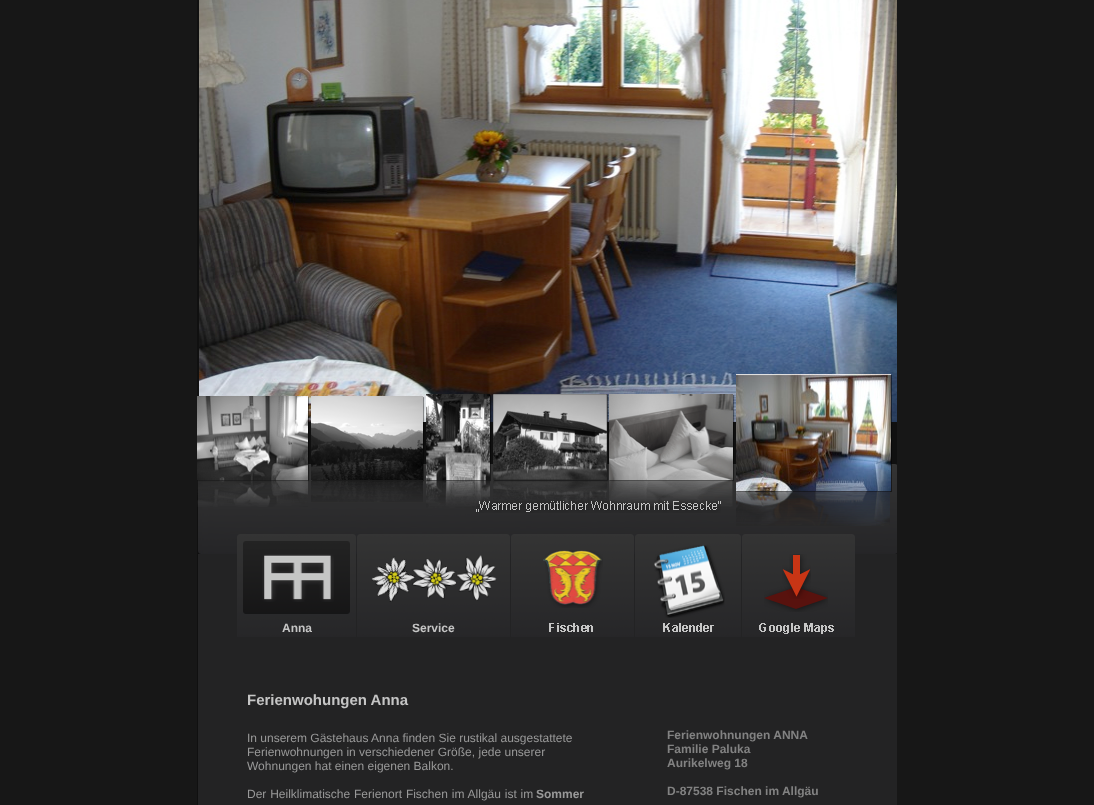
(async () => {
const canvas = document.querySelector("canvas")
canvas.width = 1094
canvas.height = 805
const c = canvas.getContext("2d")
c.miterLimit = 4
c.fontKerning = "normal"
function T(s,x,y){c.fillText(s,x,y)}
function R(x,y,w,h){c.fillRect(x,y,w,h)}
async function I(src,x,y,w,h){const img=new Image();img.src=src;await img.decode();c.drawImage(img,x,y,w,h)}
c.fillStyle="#171717"
R(0,0,1094,805)
c.fillStyle="#101010"
R(197,0,700,805)
await I("1.png",199,0,698,422)
await I("8.png",198,464,699,90)
c.fillStyle="#00000078"
R(737,375,155,117)
await I("2.png",736,374,155,117)
await I("3.png",197,396,113,111)
await I("4.png",311,396,114,106)
await I("9.png",476,501,245,12)
await I("5.png",426,394,65,114)
await I("6.png",493,394,116,114)
await I("7.png",609,394,126,113)
await I("10.png",736,491,154,35)
c.fillStyle="#232324"
R(198,554,699,251)
await I("11.png",237,534,119,103)
await I("12.png",357,534,153,103)
await I("13.png",511,534,123,103)
await I("14.png",635,534,106,103)
await I("15.png",742,534,113,103)
await I("16.png",243,541,107,73)
await I("19.png",654,545,71,72)
await I("17.png",654,544,70,74)
await I("20.png",545,550,58,58)
await I("18.png",543,550,59,55)
await I("21.png",262,554,72,48)
await I("25.png",764,586,64,26)
await I("22.png",782,554,29,45)
await I("23.png",264,555,67,45)
await I("24.png",371,555,126,47)
c.font="bold 12px Liberation Sans"
c.fillStyle="#c5c5c5"
T("Anna",282,632)
T("Service",412,632)
await I("26.png",549,623,44,9)
await I("27.png",663,623,51,9)
await I("28.png",759,623,75,11)
c.font="bold 15px Liberation Sans"
T("Ferienwohungen Anna",247,705)
c.font="12px Liberation Sans"
c.fillStyle="#999"
T("In unserem Gästehaus Anna finden Sie rustikal ausgestattete",247,742)
T("Ferienwohnungen in verschiedener Größe, jede unserer",247,756)
T("Wohnungen hat einen eigenen Balkon.",247,770)
c.wordSpacing="0.5px"
T("Der Heilklimatische Ferienort Fischen im Allgäu ist im",247,798)
c.wordSpacing="0px"
c.font="bold 12px Liberation Sans"
T("Sommer",536,798)
c.fillStyle="#828282"
T("Ferienwohnungen ANNA",667,739)
T("Familie Paluka",667,753)
T("Aurikelweg 18",667,767)
T("D-87538 Fischen im Allgäu",667,795)
})()
